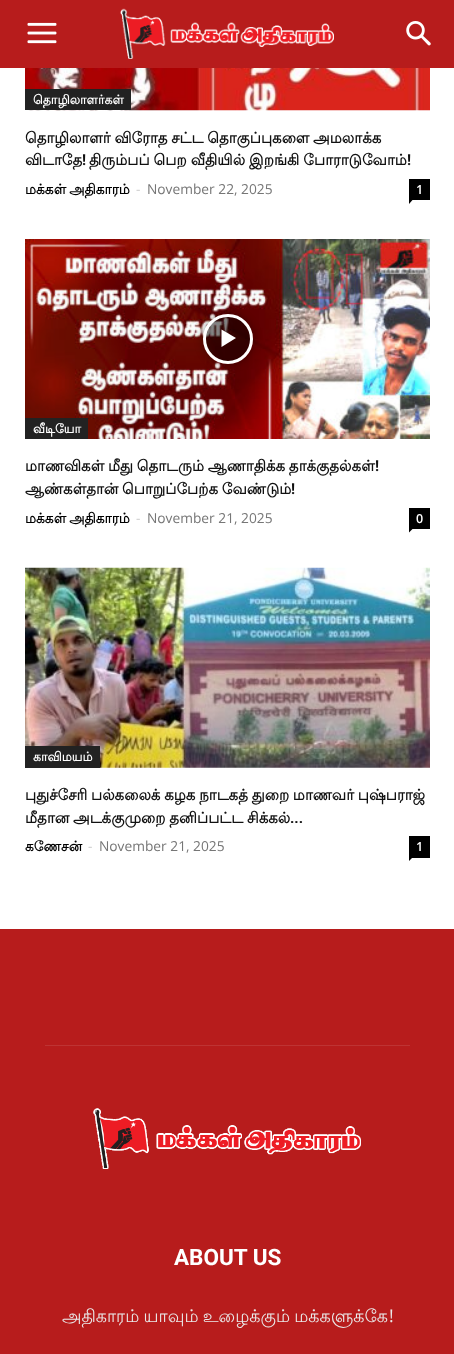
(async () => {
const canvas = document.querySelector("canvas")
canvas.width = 454
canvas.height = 1354
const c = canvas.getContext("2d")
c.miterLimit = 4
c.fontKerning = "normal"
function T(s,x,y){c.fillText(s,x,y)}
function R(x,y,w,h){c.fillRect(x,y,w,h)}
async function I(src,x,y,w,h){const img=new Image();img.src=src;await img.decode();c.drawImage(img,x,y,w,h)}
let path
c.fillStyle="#fff"
R(0,0,454,1354)
c.fillStyle="#b71c1c"
R(0,0,454,68)
await I("1.png",27,22,30,22)
await I("2.png",120,8,214,51)
await I("3.png",406,21,25,25)
await I("4.png",25,68,405,43)
c.fillStyle="#222"
R(25,89,106,21)
c.font="bold 12.5px Lohit Tamil"
c.fillStyle="#fff"
T("தொழிலாளர்கள்",33,104)
c.wordSpacing="-0.75px"
c.font="bold 15px Lohit Tamil"
c.fillStyle="#111"
T("தொழிலாளர் விரோத சட்ட தொகுப்புகளை அமலாக்க",25,143)
c.wordSpacing="0px"
T("விடாதே",25,165)
c.font="bold 15px Roboto"
T("!",82,165)
c.wordSpacing="-0.5px"
c.font="bold 15px Lohit Tamil"
T("திரும்பப் பெற வீதியில் இறங்கி போராடுவோம்",89,165)
c.wordSpacing="0px"
c.font="bold 15px Roboto"
T("!",407,165)
c.wordSpacing="-1px"
c.font="bold 13.75px Lohit Tamil"
c.fillStyle="#000"
T("மக்கள் அதிகாரம்",25,194)
c.wordSpacing="0px"
c.font="13.75px Open Sans"
c.fillStyle="#ccc"
T("-",136,194)
c.fillStyle="#767676"
T("November 22, 2025",147,194)
c.fillStyle="#000"
R(409,179,21,21)
c.font="600 12.5px Open Sans"
c.fillStyle="#fff"
T("1",416,194)
c.fillStyle="#000"
path = new Path2D("M409 200h3.5l-3.5 4z")
c.fill(path)
await I("5.png",25,239,405,200)
c.save()
path = new Path2D("M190 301h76v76h-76zm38 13c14 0 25 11 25 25c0 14-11 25-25 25c-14 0-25-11-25-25c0-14 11-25 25-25z")
c.clip(path,"evenodd")
c.fillStyle="#00000066"
c.filter="blur(4px)"
c.beginPath()
c.roundRect(203,314,50,50,25)
c.fill()
c.filter="none"
c.restore()
c.fillStyle="#0000007a"
c.beginPath()
c.arc(228,339,23.5,0,7)
c.fill()
c.strokeStyle="#fff"
c.lineWidth=3
c.stroke()
c.fillStyle="#fff"
path = new Path2D("M221.5 329.5v17.5l14.5-9z")
c.fill(path)
c.fillStyle="#222"
R(25,418,63,21)
c.font="bold 12.5px Lohit Tamil"
c.fillStyle="#fff"
T("வீடியோ",33,433)
c.wordSpacing="-0.75px"
c.font="bold 15px Lohit Tamil"
c.fillStyle="#111"
T("மாணவிகள் மீது தொடரும் ஆணாதிக்க தாக்குதல்கள்",25,471)
c.wordSpacing="0px"
c.font="bold 15px Roboto"
T("!",375,471)
c.wordSpacing="-0.75px"
c.font="bold 15px Lohit Tamil"
T("ஆண்கள்தான் பொறுப்பேற்க வேண்டும்",25,494)
c.wordSpacing="0px"
c.font="bold 15px Roboto"
T("!",291,494)
c.wordSpacing="-1px"
c.font="bold 13.75px Lohit Tamil"
c.fillStyle="#000"
T("மக்கள் அதிகாரம்",25,523)
c.wordSpacing="0px"
c.font="13.75px Open Sans"
c.fillStyle="#ccc"
T("-",136,523)
c.fillStyle="#767676"
T("November 21, 2025",147,523)
c.fillStyle="#000"
R(409,508,21,21)
c.font="600 12.5px Open Sans"
c.fillStyle="#fff"
T("0",416,523)
c.fillStyle="#000"
path = new Path2D("M409 529h3.5l-3.5 3.5z")
c.fill(path)
await I("6.png",25,567,405,201)
c.fillStyle="#222"
R(25,746,75,22)
c.font="bold 12.5px Lohit Tamil"
c.fillStyle="#fff"
T("காவிமயம்",33,761)
c.wordSpacing="-0.75px"
c.font="bold 15px Lohit Tamil"
c.fillStyle="#111"
T("புதுச்சேரி பல்கலைக் கழக நாடகத் துறை மாணவர் புஷ்பராஜ்",25,800)
T("மீதான அடக்குமுறை தனிப்பட்ட சிக்கல்",25,823)
c.wordSpacing="0px"
c.font="bold 15px Roboto"
T("...",290,823)
c.font="bold 13.75px Lohit Tamil"
c.fillStyle="#000"
T("கணேசன்",25,851)
c.font="13.75px Open Sans"
c.fillStyle="#ccc"
T("-",88,851)
c.fillStyle="#767676"
T("November 21, 2025",99,851)
c.fillStyle="#000"
R(409,836,21,22)
c.font="600 12.5px Open Sans"
c.fillStyle="#fff"
T("1",416,851)
c.fillStyle="#000"
path = new Path2D("M409 857.5h3.5l-3.5 3.5z")
c.fill(path)
c.fillStyle="#b71c1c"
R(0,929,454,425)
c.fillStyle="#be3333"
R(45,1045,365,1)
await I("7.png",93,1108,268,61)
c.font="bold 22.5px Roboto"
c.fillStyle="#fff"
T("ABOUT US",174,1265)
c.wordSpacing="-1px"
c.font="17.5px Lohit Tamil"
c.fillStyle="#eaeaea"
T("அதிகாரம் யாவும் உழைக்கும் மக்களுக்கே",62,1322)
c.wordSpacing="0px"
c.font="17.5px Open Sans"
T("!",389,1322)
})()
